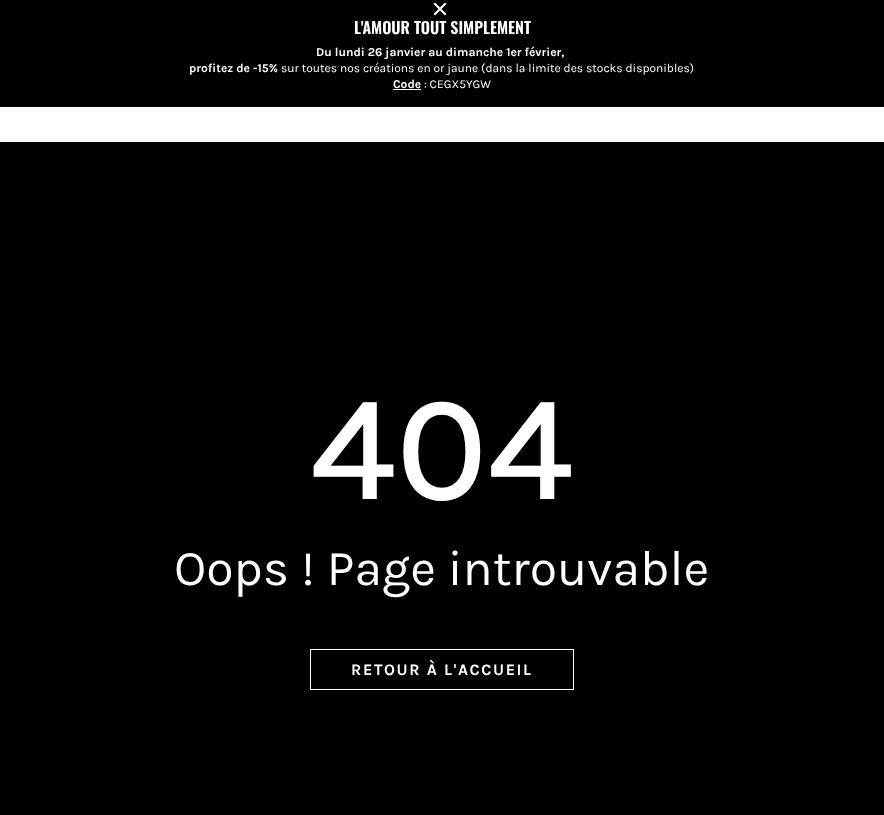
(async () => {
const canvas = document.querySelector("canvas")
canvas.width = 884
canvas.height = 815
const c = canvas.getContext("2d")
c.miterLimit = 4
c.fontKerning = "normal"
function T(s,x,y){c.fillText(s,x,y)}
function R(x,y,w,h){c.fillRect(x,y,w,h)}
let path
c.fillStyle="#fff"
R(0,0,884,815)
c.fillStyle="#000"
R(0,0,884,107)
c.fillStyle="#fff"
path = new Path2D("M433.5 14l11.5-11.5l1.5 1.5l-11.5 11.5z")
c.fill(path)
path = new Path2D("M435 2.5l11.5 11.5l-1.5 1.5l-11.5-11.5z")
c.fill(path)
c.font="600 16px Oswald"
T("L'AMOUR TOUT SIMPLEMENT",354,34)
c.font="bold 12px Karla"
T("Du lundi 26 janvier au dimanche 1er février,",316,56)
T("profitez de -15%",189,72)
c.font="12px Karla"
T("sur toutes nos créations en or jaune (dans la limite des stocks disponibles)",281,72)
c.font="bold 12px Karla"
T("Code",393,88)
R(393,89,28,1)
c.font="12px Karla"
T(": CEGX5YGW",424,88)
c.fillStyle="#000"
R(0,142,884,673)
c.font="500 150px Karla"
c.fillStyle="#fff"
T("404",310,499)
c.font="50px Karla"
T("Oops ! Page introuvable",174,585)
c.strokeStyle="#fff"
c.strokeRect(310.5,649.5,263,40)
c.letterSpacing="1.6px"
c.font="bold 16px Karla"
T("RETOUR À L'ACCUEIL",351,675)
})()
